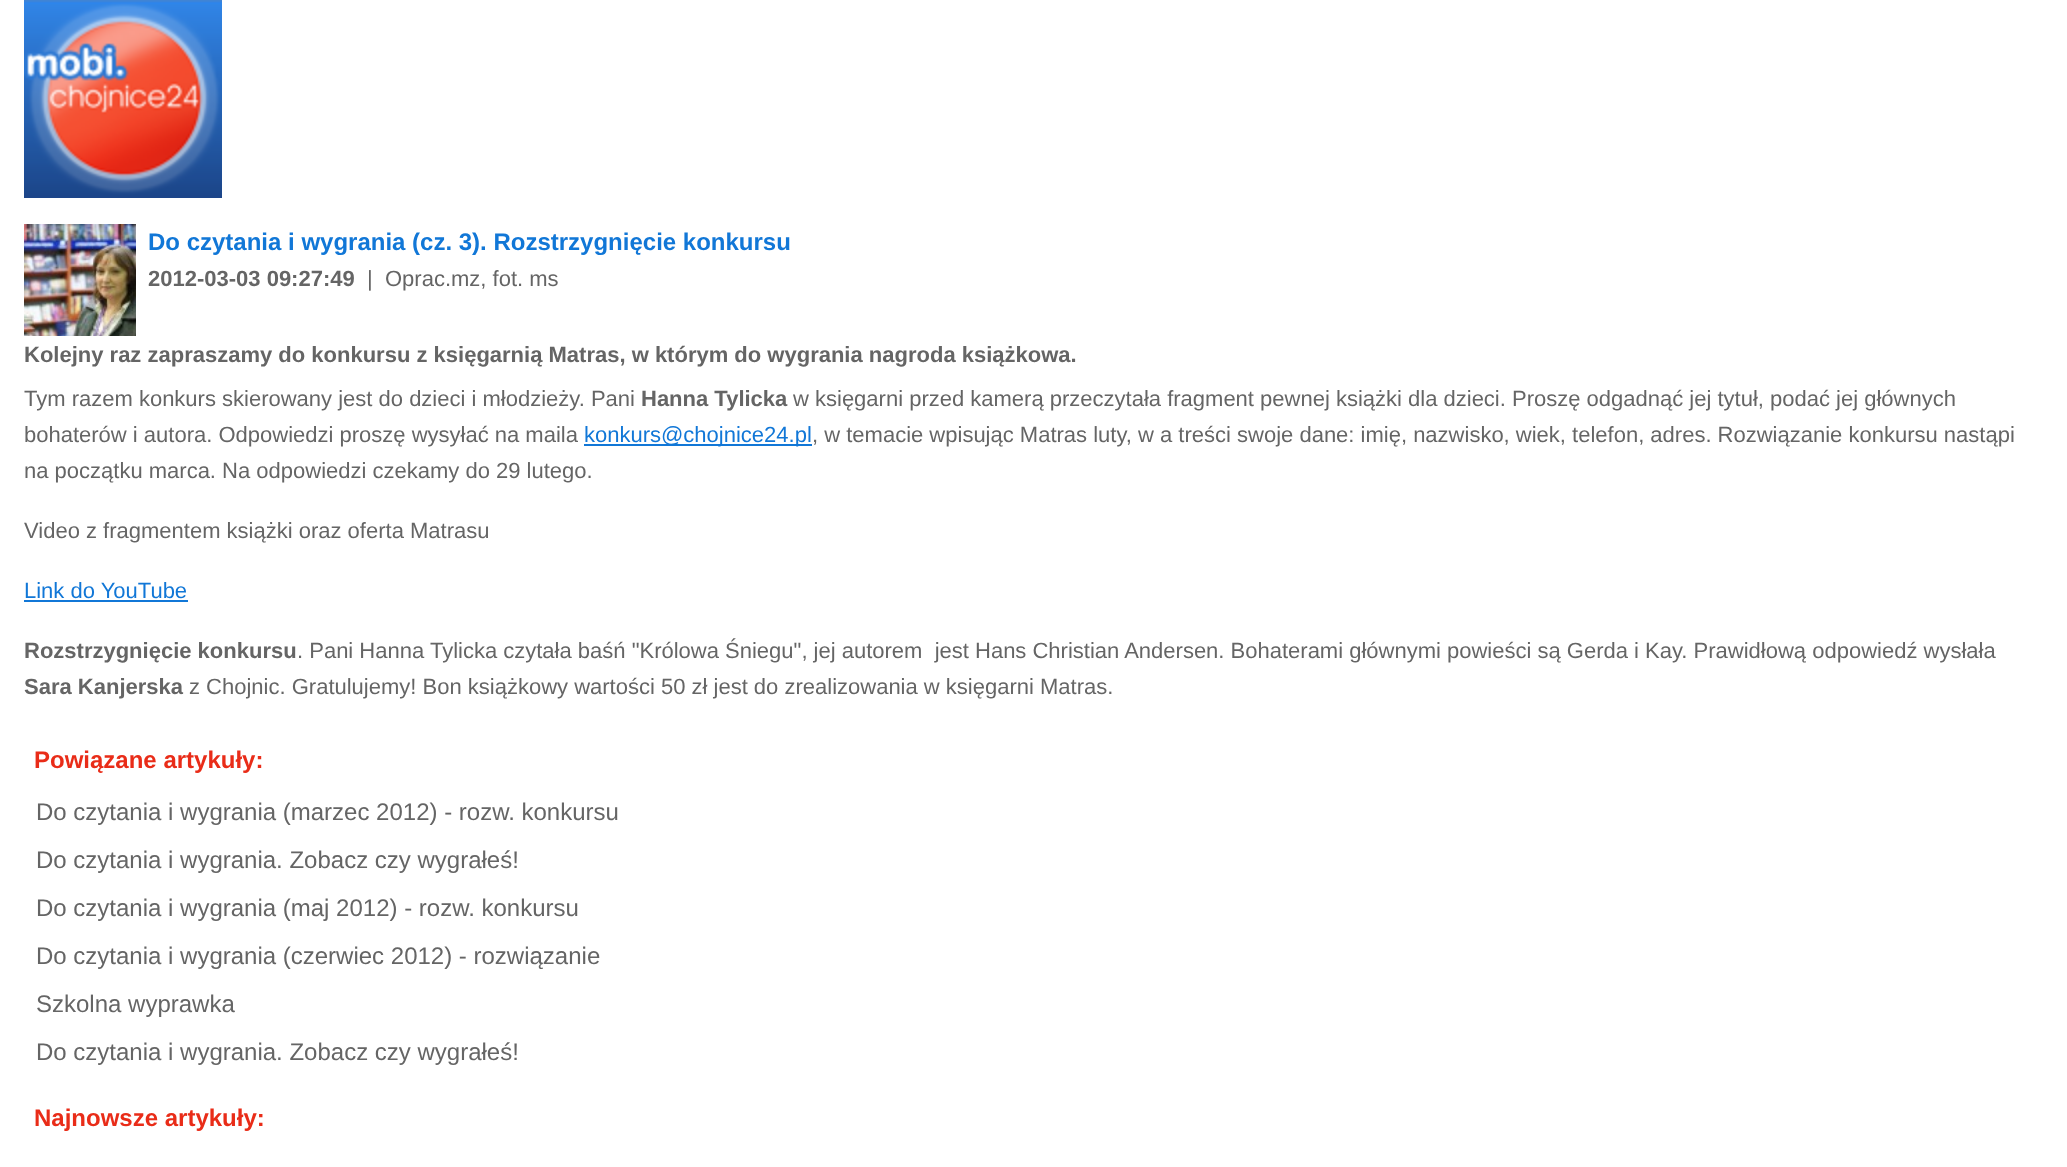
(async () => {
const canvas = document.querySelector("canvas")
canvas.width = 2067
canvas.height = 1167
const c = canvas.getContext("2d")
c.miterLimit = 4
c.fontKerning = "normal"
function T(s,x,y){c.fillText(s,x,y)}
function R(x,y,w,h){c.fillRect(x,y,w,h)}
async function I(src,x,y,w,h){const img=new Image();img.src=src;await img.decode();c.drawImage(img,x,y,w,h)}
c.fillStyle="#fff"
R(0,0,2067,1167)
await I("1.png",24,0,198,198)
await I("2.png",24,224,112,112)
c.font="bold 24px Liberation Sans"
c.fillStyle="#1177d7"
T("Do czytania i wygrania (cz. 3). Rozstrzygnięcie konkursu",148,250)
c.font="bold 22px Liberation Sans"
c.fillStyle="#656565"
T("2012-03-03 09:27:49",148,286)
c.font="22px Liberation Sans"
T("|",367,286)
T("Oprac.mz, fot. ms",385,286)
c.font="bold 22px Liberation Sans"
T("Kolejny raz zapraszamy do konkursu z księgarnią Matras, w którym do wygrania nagroda książkowa.",24,362)
c.font="22px Liberation Sans"
T("Tym razem konkurs skierowany jest do dzieci i młodzieży. Pani",24,406)
c.font="bold 22px Liberation Sans"
T("Hanna Tylicka",641,406)
c.font="22px Liberation Sans"
T("w księgarni przed kamerą przeczytała fragment pewnej książki dla dzieci. Proszę odgadnąć jej tytuł, podać jej głównych",793,406)
T("bohaterów i autora. Odpowiedzi proszę wysyłać na maila",24,442)
c.fillStyle="#1177d7"
R(584,444,228,2)
T("konkurs@chojnice24.pl",584,442)
c.fillStyle="#656565"
T(", w temacie wpisując Matras luty, w a treści swoje dane: imię, nazwisko, wiek, telefon, adres. Rozwiązanie konkursu nastąpi",812,442)
T("na początku marca. Na odpowiedzi czekamy do 29 lutego.",24,478)
T("Video z fragmentem książki oraz oferta Matrasu",24,538)
c.fillStyle="#1177d7"
T("Link do YouTube",24,598)
R(24,600,164,2)
c.font="bold 22px Liberation Sans"
c.fillStyle="#656565"
T("Rozstrzygnięcie konkursu",24,658)
c.font="22px Liberation Sans"
T(". Pani Hanna Tylicka czytała baśń \"Królowa Śniegu\", jej autorem  jest Hans Christian Andersen. Bohaterami głównymi powieści są Gerda i Kay. Prawidłową odpowiedź wysłała",297,658)
c.font="bold 22px Liberation Sans"
T("Sara Kanjerska",24,694)
c.font="22px Liberation Sans"
T("z Chojnic. Gratulujemy! Bon książkowy wartości 50 zł jest do zrealizowania w księgarni Matras.",189,694)
c.font="bold 24px Liberation Sans"
c.fillStyle="#e92c18"
T("Powiązane artykuły:",34,768)
c.font="24px Liberation Sans"
c.fillStyle="#656565"
T("Do czytania i wygrania (marzec 2012) - rozw. konkursu",36,820)
T("Do czytania i wygrania. Zobacz czy wygrałeś!",36,868)
T("Do czytania i wygrania (maj 2012) - rozw. konkursu",36,916)
T("Do czytania i wygrania (czerwiec 2012) - rozwiązanie",36,964)
T("Szkolna wyprawka",36,1012)
T("Do czytania i wygrania. Zobacz czy wygrałeś!",36,1060)
c.font="bold 24px Liberation Sans"
c.fillStyle="#e92c18"
T("Najnowsze artykuły:",34,1126)
})()
